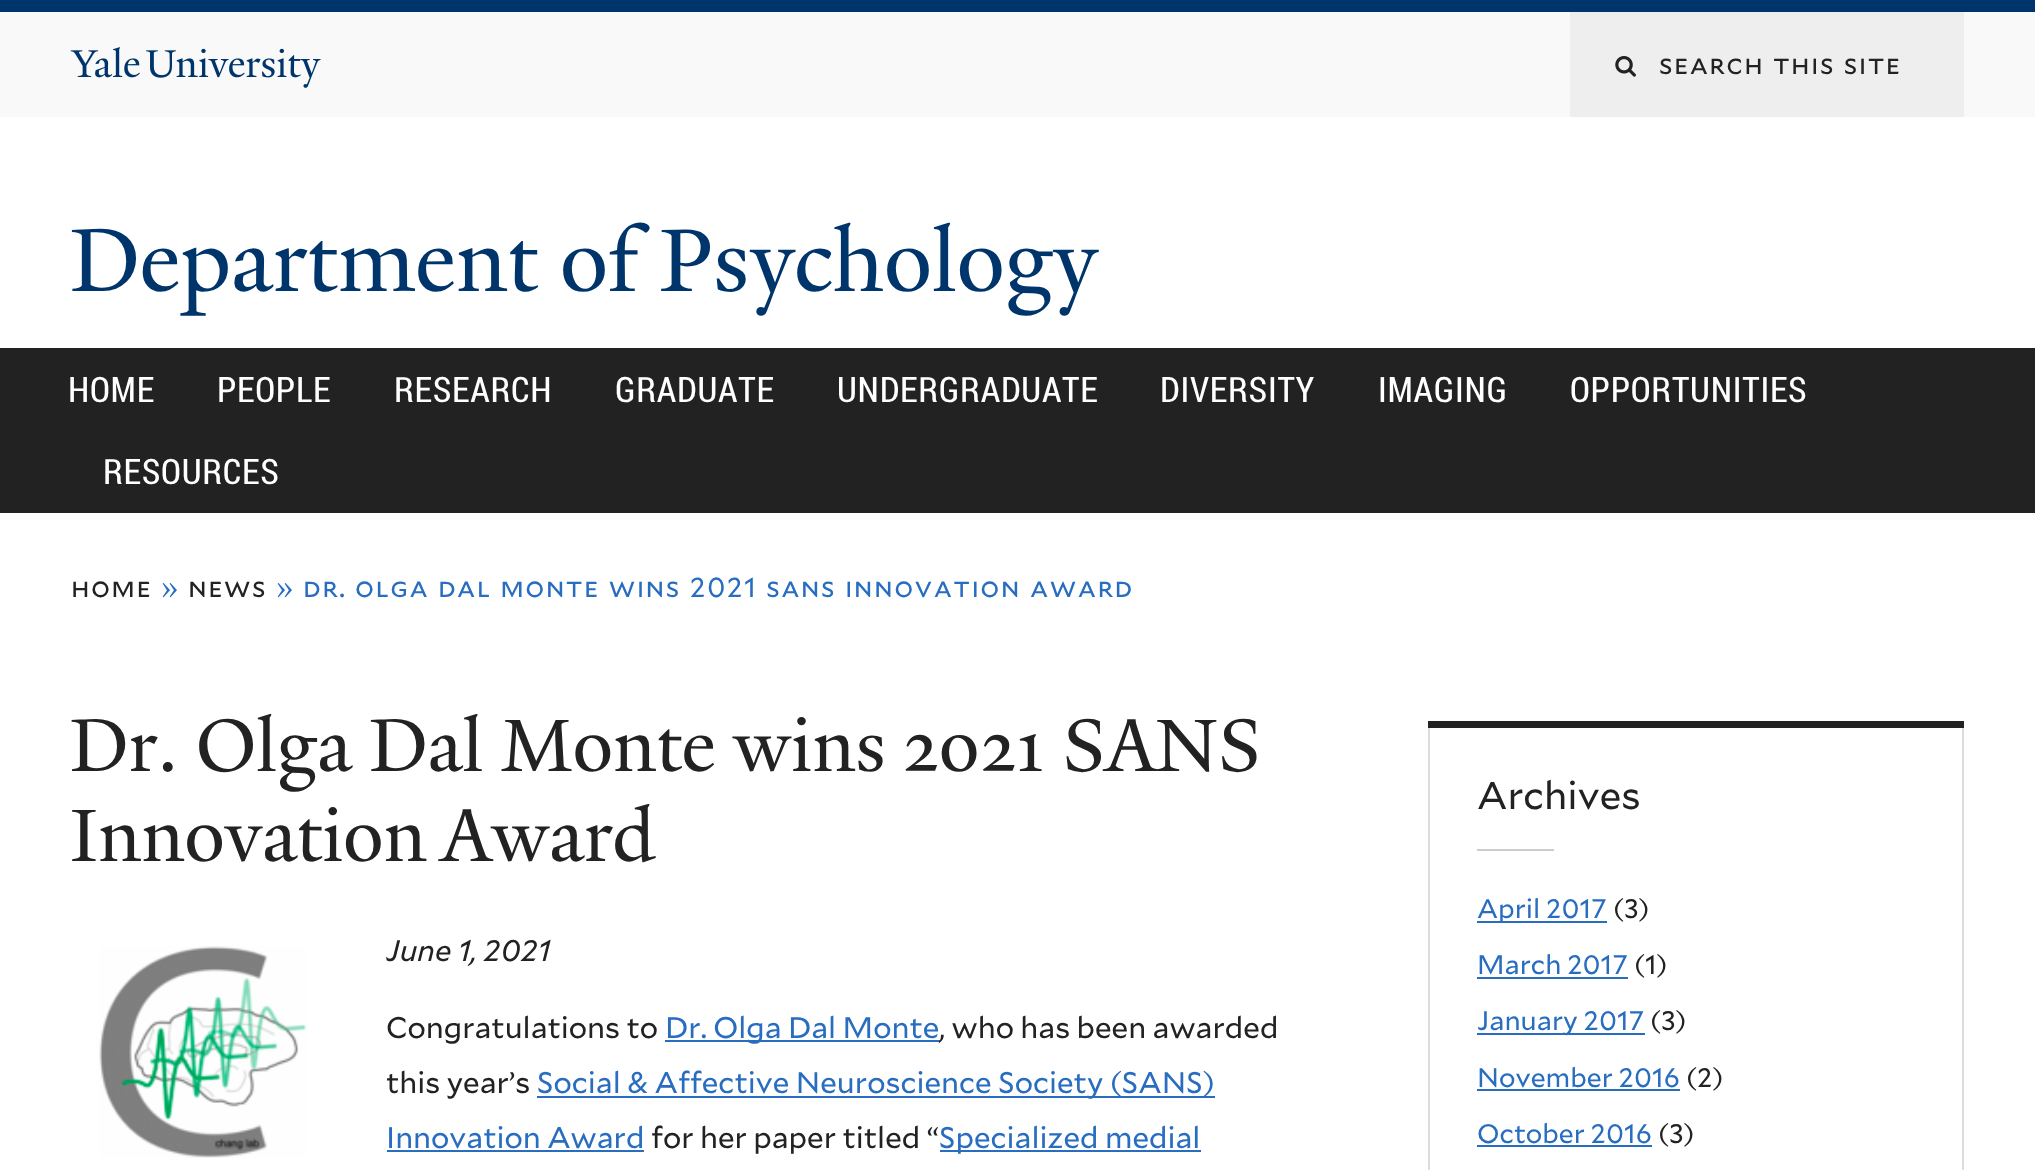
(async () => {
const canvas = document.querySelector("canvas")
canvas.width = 2035
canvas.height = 1170
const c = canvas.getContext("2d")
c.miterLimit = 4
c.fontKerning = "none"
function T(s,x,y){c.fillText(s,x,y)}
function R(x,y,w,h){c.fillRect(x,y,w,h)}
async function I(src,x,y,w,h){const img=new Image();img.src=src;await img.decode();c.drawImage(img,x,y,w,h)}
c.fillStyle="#fff"
R(0,0,2035,1170)
c.fillStyle="#00356b"
R(0,0,2035,12)
c.fillStyle="#f9f9f9"
R(0,12,2035,105)
await I("1.png",70,47,70,31)
await I("2.png",146,48,175,40)
c.fillStyle="#eee"
R(1570,12,394,105)
await I("3.png",1615,56,21,21)
c.letterSpacing="1.38px"
c.wordSpacing="1.5px"
c.font="27.5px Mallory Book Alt"
c.fillStyle="#222"
T("search this site",1659,74)
c.letterSpacing="0px"
c.wordSpacing="0px"
c.font="96.25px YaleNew"
c.fillStyle="#00356b"
T("Department of Psychology",70,291)
c.fillStyle="#222"
R(0,348,2035,165)
c.letterSpacing="0.75px"
c.font="35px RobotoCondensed"
c.fillStyle="#fff"
T("HOME",68,402)
T("PEOPLE",217,402)
T("RESEARCH",394,402)
T("GRADUATE",615,402)
T("UNDERGRADUATE",837,402)
T("DIVERSITY",1160,402)
T("IMAGING",1378,402)
T("OPPORTUNITIES",1570,402)
T("RESOURCES",103,484)
c.letterSpacing="1.38px"
c.font="27.5px Mallory Book Alt"
c.fillStyle="#222"
T("home",71,597)
c.font="27.5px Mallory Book"
c.fillStyle="#286dc0"
T("»",161,597)
c.font="27.5px Mallory Book Alt"
c.fillStyle="#222"
T("news",188,597)
c.font="27.5px Mallory Book"
c.fillStyle="#286dc0"
T("»",276,597)
c.wordSpacing="1.5px"
c.font="27.5px Mallory Book Alt"
T("dr. olga dal monte wins 2021 sans innovation",303,597)
T("award",1030,597)
c.letterSpacing="0px"
c.wordSpacing="-1px"
c.font="80.5px YaleNew"
c.fillStyle="#222"
T("Dr. Olga Dal Monte wins 2021 SANS",70,771)
c.wordSpacing="-4px"
T("Innovation Award",70,861)
await I("4.png",99,946,208,212)
c.wordSpacing="0px"
c.font="italic 29.75px Mallory Book"
T("June 1, 2021",386,961)
c.font="29.75px Mallory Book"
T("Congratulations to",386,1038)
c.fillStyle="#286dc0"
R(665,1040,275,2)
T("Dr. Olga Dal Monte",665,1038)
c.fillStyle="#222"
T(", who has been awarded",939,1038)
T("this year’s",386,1093)
c.fillStyle="#286dc0"
R(537,1096,678,2)
T("Social & Affective Neuroscience Society (SANS)",537,1093)
T("Innovation Award",386,1148)
R(387,1150,257,2)
c.fillStyle="#222"
T("for her paper titled “",651,1148)
c.fillStyle="#286dc0"
R(940,1150,261,2)
T("Specialized medial",939,1148)
c.fillStyle="#222"
R(1428,721,536,7)
c.fillStyle="#ddd"
R(1962,728,2,442)
R(1428,728,2,442)
c.font="38.5px Mallory Book"
c.fillStyle="#222"
T("Archives",1477,809)
c.fillStyle="#ccc"
R(1477,849,77,2)
c.fillStyle="#286dc0"
R(1477,921,130,2)
c.font="26.75px Mallory Book"
T("April 2017",1477,918)
c.fillStyle="#222"
T("(3)",1613,918)
c.fillStyle="#286dc0"
T("March 2017",1477,974)
R(1477,977,151,2)
c.fillStyle="#222"
T("(1)",1634,974)
c.fillStyle="#286dc0"
R(1477,1033,168,2)
T("January 2017",1477,1030)
c.fillStyle="#222"
T("(3)",1650,1030)
c.fillStyle="#286dc0"
T("November 2016",1477,1087)
R(1477,1089,203,2)
c.fillStyle="#222"
T("(2)",1686,1087)
c.fillStyle="#286dc0"
T("October 2016",1477,1143)
R(1477,1145,175,2)
c.fillStyle="#222"
T("(3)",1658,1143)
})()
